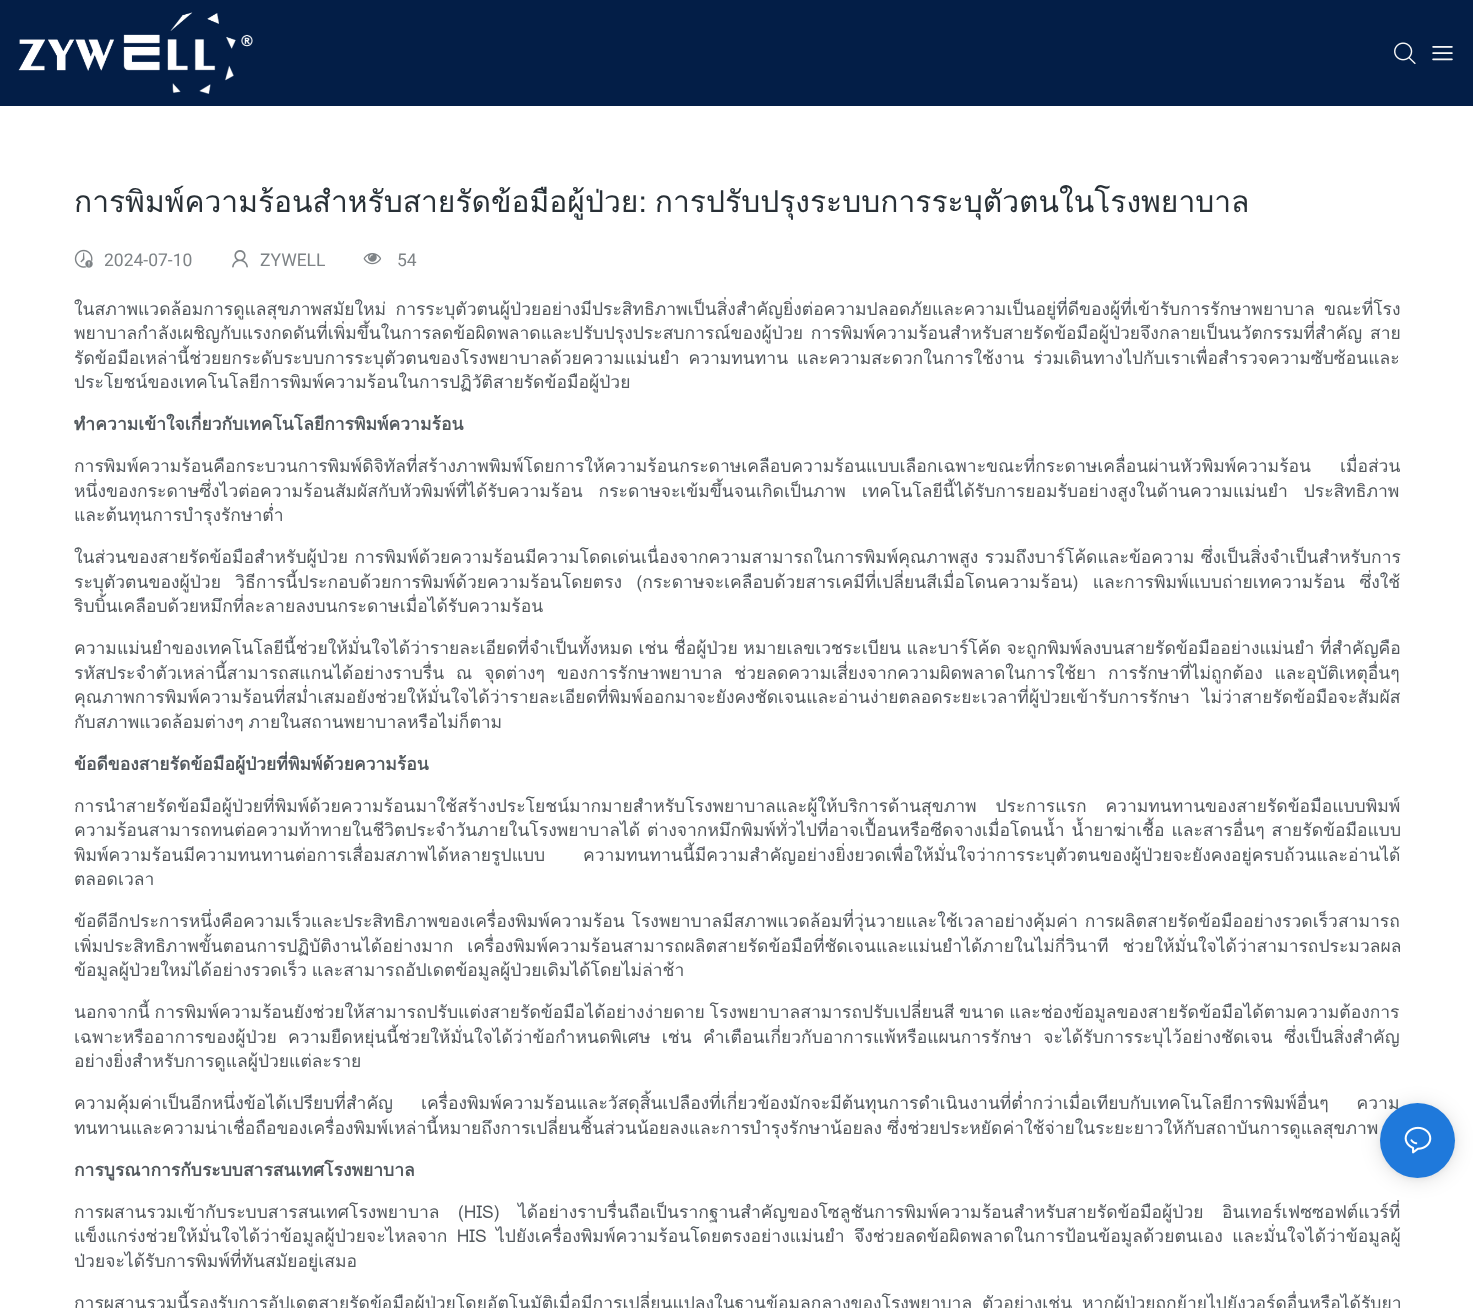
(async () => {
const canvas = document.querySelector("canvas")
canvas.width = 1473
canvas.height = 1308
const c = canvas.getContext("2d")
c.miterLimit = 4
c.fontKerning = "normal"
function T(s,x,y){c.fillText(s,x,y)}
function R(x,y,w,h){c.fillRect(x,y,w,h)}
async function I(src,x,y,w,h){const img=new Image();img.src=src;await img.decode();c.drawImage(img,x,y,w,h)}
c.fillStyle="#fff"
R(0,0,1473,1308)
c.fillStyle="#031e47"
R(0,0,1473,106)
await I("1.png",18,12,235,82)
await I("2.png",1394,42,22,22)
await I("3.png",1432,46,21,15)
c.wordSpacing="-2px"
c.font="30px Loma"
c.fillStyle="#283036"
T("การพิมพ์ความร้อนสำหรับสายรัดข้อมือผู้ป่วย: การปรับปรุงระบบการระบุตัวตนในโรงพยาบาล",74,212)
await I("4.png",74,249,19,19)
c.wordSpacing="0px"
c.font="17.5px Roboto"
c.fillStyle="#7e8386"
T("2024-07-10",104,266)
await I("5.png",232,250,16,18)
T("ZYWELL",260,266)
await I("6.png",363,253,19,12)
T("54",397,266)
c.wordSpacing="3.5px"
c.font="17.5px Loma"
c.fillStyle="#53595e"
T("ในสภาพแวดล้อมการดูแลสุขภาพสมัยใหม่ การระบุตัวตนผู้ป่วยอย่างมีประสิทธิภาพเป็นสิ่งสำคัญยิ่งต่อความปลอดภัยและความเป็นอยู่ที่ดีของผู้ที่เข้ารับการรักษาพยาบาล ขณะที่โรง",74,315)
c.wordSpacing="2px"
T("พยาบาลกำลังเผชิญกับแรงกดดันที่เพิ่มขึ้นในการลดข้อผิดพลาดและปรับปรุงประสบการณ์ของผู้ป่วย การพิมพ์ความร้อนสำหรับสายรัดข้อมือผู้ป่วยจึงกลายเป็นนวัตกรรมที่สำคัญ สาย",74,339)
c.save()
c.beginPath()
c.rect(74,280,1326,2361)
c.clip()
c.wordSpacing="3px"
T("รัดข้อมือเหล่านี้ช่วยยกระดับระบบการระบุตัวตนของโรงพยาบาลด้วยความแม่นยำ ความทนทาน และความสะดวกในการใช้งาน ร่วมเดินทางไปกับเราเพื่อสำรวจความซับซ้อนและ",74,364)
c.restore()
c.wordSpacing="0px"
T("ประโยชน์ของเทคโนโลยีการพิมพ์ความร้อนในการปฏิวัติสายรัดข้อมือผู้ป่วย",74,388)
c.save()
c.beginPath()
c.rect(74,280,1326,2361)
c.clip()
c.font="bold 17.5px Loma"
T("ทำความเข้าใจเกี่ยวกับเทคโนโลยีการพิมพ์ความร้อน",74,430)
c.restore()
c.wordSpacing="23px"
T("การพิมพ์ความร้อนคือกระบวนการพิมพ์ดิจิทัลที่สร้างภาพพิมพ์โดยการให้ความร้อนกระดาษเคลือบความร้อนแบบเลือกเฉพาะขณะที่กระดาษเคลื่อนผ่านหัวพิมพ์ความร้อน เมื่อส่วน",74,472)
c.wordSpacing="10px"
T("หนึ่งของกระดาษซึ่งไวต่อความร้อนสัมผัสกับหัวพิมพ์ที่ได้รับความร้อน กระดาษจะเข้มขึ้นจนเกิดเป็นภาพ เทคโนโลยีนี้ได้รับการยอมรับอย่างสูงในด้านความแม่นยำ ประสิทธิภาพ",74,497)
c.wordSpacing="0px"
T("และต้นทุนการบำรุงรักษาต่ำ",74,521)
c.wordSpacing="0.5px"
T("ในส่วนของสายรัดข้อมือสำหรับผู้ป่วย การพิมพ์ด้วยความร้อนมีความโดดเด่นเนื่องจากความสามารถในการพิมพ์คุณภาพสูง รวมถึงบาร์โค้ดและข้อความ ซึ่งเป็นสิ่งจำเป็นสำหรับการ",74,563)
c.wordSpacing="8.5px"
T("ระบุตัวตนของผู้ป่วย วิธีการนี้ประกอบด้วยการพิมพ์ด้วยความร้อนโดยตรง (กระดาษจะเคลือบด้วยสารเคมีที่เปลี่ยนสีเมื่อโดนความร้อน) และการพิมพ์แบบถ่ายเทความร้อน ซึ่งใช้",74,588)
c.save()
c.beginPath()
c.rect(74,280,1326,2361)
c.clip()
c.wordSpacing="0px"
T("ริบบิ้นเคลือบด้วยหมึกที่ละลายลงบนกระดาษเมื่อได้รับความร้อน",74,612)
c.restore()
c.wordSpacing="-0.25px"
T("ความแม่นยำของเทคโนโลยีนี้ช่วยให้มั่นใจได้ว่ารายละเอียดที่จำเป็นทั้งหมด เช่น ชื่อผู้ป่วย หมายเลขเวชระเบียน และบาร์โค้ด จะถูกพิมพ์ลงบนสายรัดข้อมืออย่างแม่นยำ ที่สำคัญคือ",74,654)
c.wordSpacing="6px"
T("รหัสประจำตัวเหล่านี้สามารถสแกนได้อย่างราบรื่น ณ จุดต่างๆ ของการรักษาพยาบาล ช่วยลดความเสี่ยงจากความผิดพลาดในการใช้ยา การรักษาที่ไม่ถูกต้อง และอุบัติเหตุอื่นๆ",74,679)
c.save()
c.beginPath()
c.rect(74,280,1326,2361)
c.clip()
T("คุณภาพการพิมพ์ความร้อนที่สม่ำเสมอยังช่วยให้มั่นใจได้ว่ารายละเอียดที่พิมพ์ออกมาจะยังคงชัดเจนและอ่านง่ายตลอดระยะเวลาที่ผู้ป่วยเข้ารับการรักษา ไม่ว่าสายรัดข้อมือจะสัมผัส",74,703)
c.wordSpacing="-1px"
T("กับสภาพแวดล้อมต่างๆ ภายในสถานพยาบาลหรือไม่ก็ตาม",74,728)
c.wordSpacing="0px"
c.font="bold 17.5px Loma"
T("ข้อดีของสายรัดข้อมือผู้ป่วยที่พิมพ์ด้วยความร้อน",74,770)
c.restore()
c.wordSpacing="13px"
T("การนำสายรัดข้อมือผู้ป่วยที่พิมพ์ด้วยความร้อนมาใช้สร้างประโยชน์มากมายสำหรับโรงพยาบาลและผู้ให้บริการด้านสุขภาพ ประการแรก ความทนทานของสายรัดข้อมือแบบพิมพ์",74,812)
c.wordSpacing="1px"
T("ความร้อนสามารถทนต่อความท้าทายในชีวิตประจำวันภายในโรงพยาบาลได้ ต่างจากหมึกพิมพ์ทั่วไปที่อาจเปื้อนหรือซีดจางเมื่อโดนน้ำ น้ำยาฆ่าเชื้อ และสารอื่นๆ สายรัดข้อมือแบบ",74,836)
c.save()
c.beginPath()
c.rect(74,280,1326,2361)
c.clip()
c.wordSpacing="32px"
T("พิมพ์ความร้อนมีความทนทานต่อการเสื่อมสภาพได้หลายรูปแบบ ความทนทานนี้มีความสำคัญอย่างยิ่งยวดเพื่อให้มั่นใจว่าการระบุตัวตนของผู้ป่วยจะยังคงอยู่ครบถ้วนและอ่านได้",74,861)
c.restore()
c.wordSpacing="0px"
T("ตลอดเวลา",74,885)
c.save()
c.beginPath()
c.rect(74,280,1326,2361)
c.clip()
c.wordSpacing="1px"
T("ข้อดีอีกประการหนึ่งคือความเร็วและประสิทธิภาพของเครื่องพิมพ์ความร้อน โรงพยาบาลมีสภาพแวดล้อมที่วุ่นวายและใช้เวลาอย่างคุ้มค่า การผลิตสายรัดข้อมืออย่างรวดเร็วสามารถ",74,927)
c.wordSpacing="8px"
T("เพิ่มประสิทธิภาพขั้นตอนการปฏิบัติงานได้อย่างมาก เครื่องพิมพ์ความร้อนสามารถผลิตสายรัดข้อมือที่ชัดเจนและแม่นยำได้ภายในไม่กี่วินาที ช่วยให้มั่นใจได้ว่าสามารถประมวลผล",74,952)
c.wordSpacing="-1px"
T("ข้อมูลผู้ป่วยใหม่ได้อย่างรวดเร็ว และสามารถอัปเดตข้อมูลผู้ป่วยเดิมได้โดยไม่ล่าช้า",74,976)
c.restore()
c.wordSpacing="-1px"
T("นอกจากนี้ การพิมพ์ความร้อนยังช่วยให้สามารถปรับแต่งสายรัดข้อมือได้อย่างง่ายดาย โรงพยาบาลสามารถปรับเปลี่ยนสี ขนาด และช่องข้อมูลของสายรัดข้อมือได้ตามความต้องการ",74,1018)
c.wordSpacing="5.5px"
T("เฉพาะหรืออาการของผู้ป่วย ความยืดหยุ่นนี้ช่วยให้มั่นใจได้ว่าข้อกำหนดพิเศษ เช่น คำเตือนเกี่ยวกับอาการแพ้หรือแผนการรักษา จะได้รับการระบุไว้อย่างชัดเจน ซึ่งเป็นสิ่งสำคัญ",74,1043)
c.wordSpacing="0px"
T("อย่างยิ่งสำหรับการดูแลผู้ป่วยแต่ละราย",74,1067)
c.wordSpacing="22px"
T("ความคุ้มค่าเป็นอีกหนึ่งข้อได้เปรียบที่สำคัญ เครื่องพิมพ์ความร้อนและวัสดุสิ้นเปลืองที่เกี่ยวข้องมักจะมีต้นทุนการดำเนินงานที่ต่ำกว่าเมื่อเทียบกับเทคโนโลยีการพิมพ์อื่นๆ ความ",74,1109)
c.wordSpacing="-1px"
T("ทนทานและความน่าเชื่อถือของเครื่องพิมพ์เหล่านี้หมายถึงการเปลี่ยนชิ้นส่วนน้อยลงและการบำรุงรักษาน้อยลง ซึ่งช่วยประหยัดค่าใช้จ่ายในระยะยาวให้กับสถาบันการดูแลสุขภาพ",74,1134)
c.wordSpacing="0px"
c.font="bold 17.5px Loma"
T("การบูรณาการกับระบบสารสนเทศโรงพยาบาล",74,1176)
c.wordSpacing="12.5px"
c.font="17.5px Loma"
T("การผสานรวมเข้ากับระบบสารสนเทศโรงพยาบาล (HIS) ได้อย่างราบรื่นถือเป็นรากฐานสำคัญของโซลูชันการพิมพ์ความร้อนสำหรับสายรัดข้อมือผู้ป่วย อินเทอร์เฟซซอฟต์แวร์ที่",74,1218)
c.wordSpacing="3.5px"
T("แข็งแกร่งช่วยให้มั่นใจได้ว่าข้อมูลผู้ป่วยจะไหลจาก HIS ไปยังเครื่องพิมพ์ความร้อนโดยตรงอย่างแม่นยำ จึงช่วยลดข้อผิดพลาดในการป้อนข้อมูลด้วยตนเอง และมั่นใจได้ว่าข้อมูลผู้",74,1242)
c.save()
c.beginPath()
c.rect(74,280,1326,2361)
c.clip()
c.wordSpacing="0px"
T("ป่วยจะได้รับการพิมพ์ที่ทันสมัยอยู่เสมอ",74,1267)
c.restore()
c.wordSpacing="4px"
T("การผสานรวมนี้รองรับการอัปเดตสายรัดข้อมือผู้ป่วยโดยอัตโนมัติเมื่อมีการเปลี่ยนแปลงในฐานข้อมูลกลางของโรงพยาบาล ตัวอย่างเช่น หากผู้ป่วยถูกย้ายไปยังวอร์ดอื่นหรือได้รับยา",74,1309)
c.fillStyle="#0000001f"
c.filter="blur(10px)"
c.beginPath()
c.roundRect(1380,1105,75,75,37.5)
c.fill()
c.filter="none"
c.fillStyle="#0000000f"
c.filter="blur(2.5px)"
c.beginPath()
c.roundRect(1380,1104,75,75,37.5)
c.fill()
c.filter="none"
c.fillStyle="#1f79db"
c.beginPath()
c.arc(1417.5,1140.5,37.5,0,7)
c.fill()
await I("7.png",1404,1126,28,28)
})()
